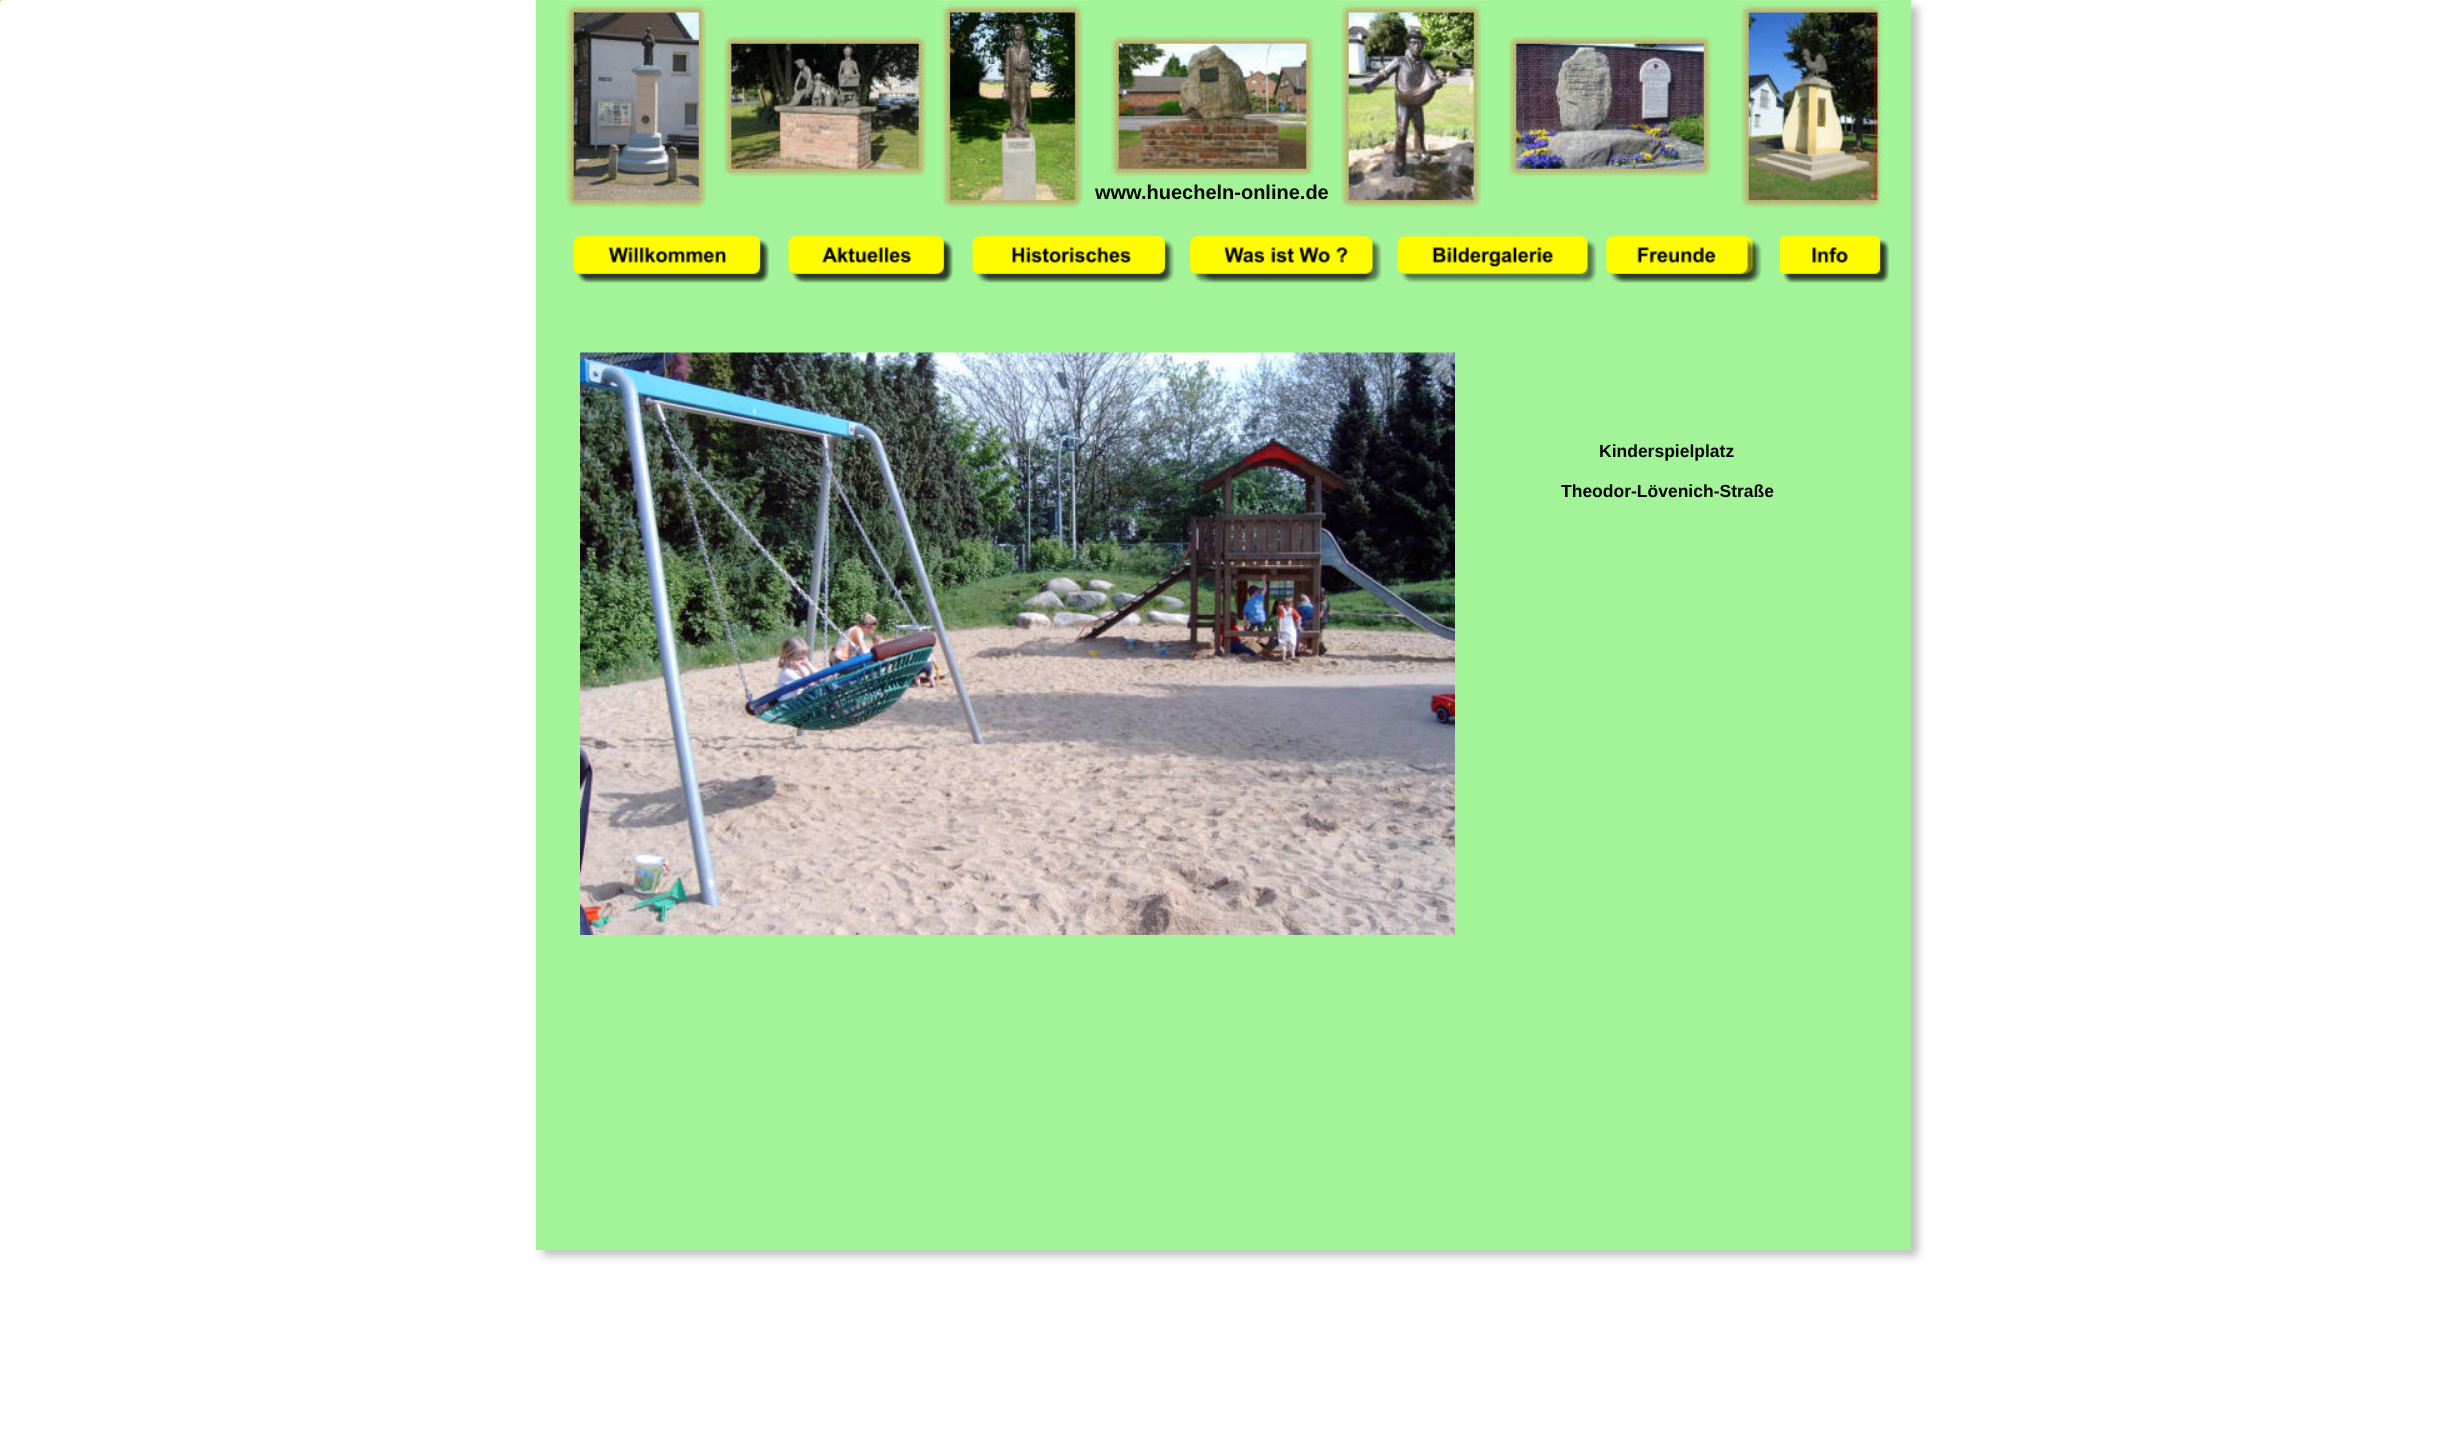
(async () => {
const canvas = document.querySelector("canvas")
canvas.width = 2446
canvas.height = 1443
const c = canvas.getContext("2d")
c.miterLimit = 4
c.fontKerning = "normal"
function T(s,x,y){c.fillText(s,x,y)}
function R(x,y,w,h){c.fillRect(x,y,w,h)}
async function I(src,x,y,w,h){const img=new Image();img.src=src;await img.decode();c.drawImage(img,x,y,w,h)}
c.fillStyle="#fff"
R(0,0,2446,1443)
await I("1.png",0,0,2,2)
c.fillStyle="#00000040"
c.filter="blur(4px)"
c.beginPath()
c.rect(543,6,1375,1250)
c.fill()
c.filter="none"
c.fillStyle="#a3f498"
R(536,0,1375,1250)
await I("2.png",560,0,153,209)
await I("3.png",723,30,205,147)
await I("4.png",936,0,153,209)
await I("5.png",1105,30,210,147)
await I("6.png",1335,0,153,209)
await I("7.png",1508,30,205,147)
await I("8.png",1735,0,153,209)
c.font="bold 20px Liberation Sans"
c.fillStyle="#000"
T("www.huecheln-online.de",1095,199)
await I("9.png",573,236,196,47)
await I("10.png",573,236,196,47)
await I("11.png",788,236,165,47)
await I("12.png",788,236,165,47)
await I("13.png",972,236,198,47)
await I("14.png",981,236,193,47)
await I("15.png",1189,236,184,47)
await I("16.png",1202,236,180,47)
await I("17.png",1397,236,200,47)
await I("19.png",1612,236,150,47)
await I("18.png",1606,236,150,47)
await I("20.png",1779,236,110,47)
await I("21.png",1779,236,110,47)
await I("22.png",580,352,875,583)
c.font="bold 17.5px Liberation Sans"
T("Kinderspielplatz",1599,457)
T("Theodor-Lövenich-Straße",1561,497)
})()
